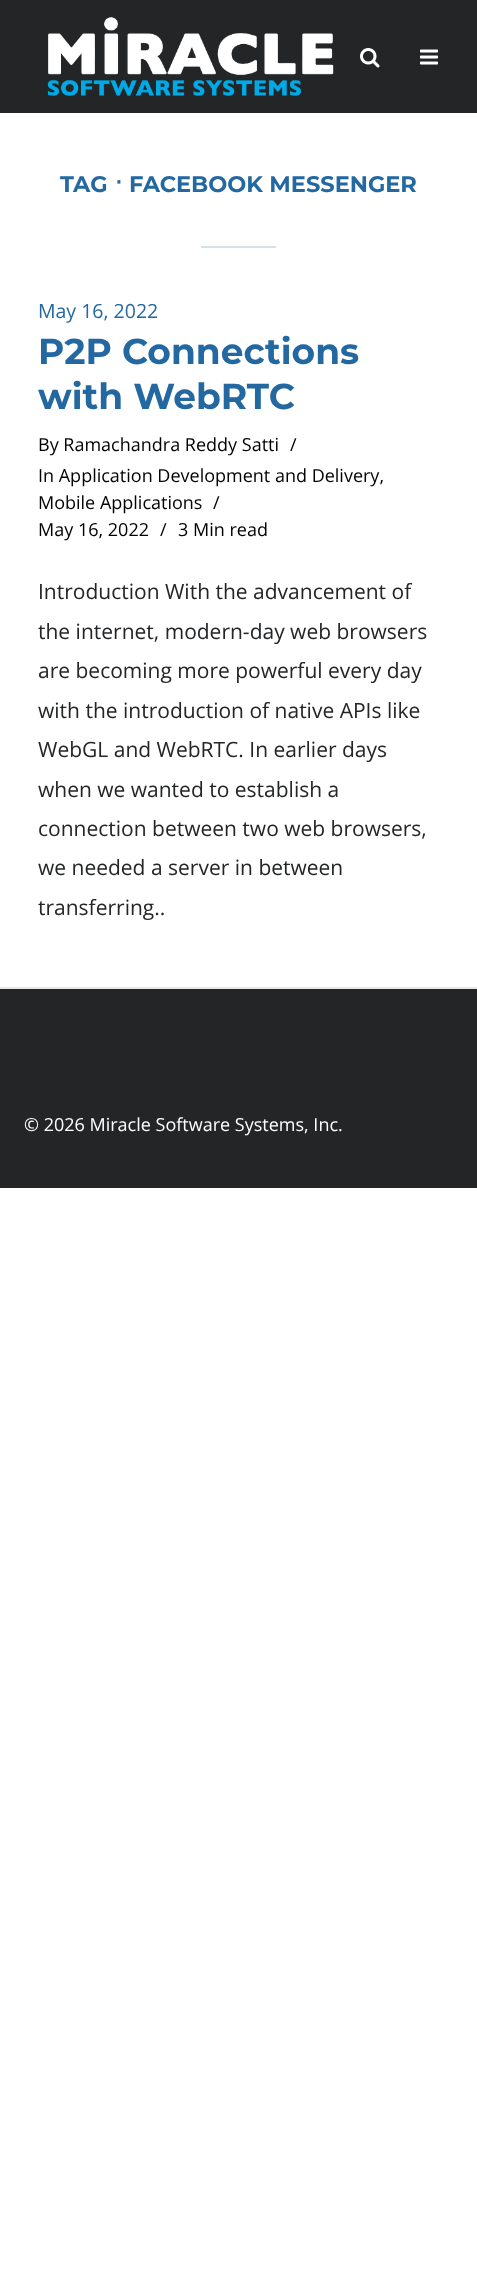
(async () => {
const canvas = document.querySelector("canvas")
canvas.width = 477
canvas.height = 2294
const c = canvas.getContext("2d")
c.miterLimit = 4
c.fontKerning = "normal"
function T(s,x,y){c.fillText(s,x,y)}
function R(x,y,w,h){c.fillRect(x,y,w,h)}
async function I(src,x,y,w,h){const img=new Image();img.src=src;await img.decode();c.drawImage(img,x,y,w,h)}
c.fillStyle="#fff"
R(0,0,477,2294)
c.fillStyle="#232527"
R(0,0,477,113)
await I("1.png",47,17,287,79)
await I("2.png",360,48,20,20)
await I("3.png",420,49,18,16)
c.fillStyle="#e6e6e6"
R(0,987,477,2)
c.font="bold 22.5px Montserrat"
c.fillStyle="#2368a0"
T("TAG",60,192)
c.font="bold 22.5px DejaVu Sans"
T("⋅",115,190)
c.font="bold 22.5px Montserrat"
T("FACEBOOK MESSENGER",129,192)
c.fillStyle="#d3e1ec"
R(201,246,75,2)
c.font="19.5px Open Sans"
c.fillStyle="#2368a0"
T("May 16, 2022",38,318)
c.font="bold 36px Montserrat"
T("P2P Connections",38,364)
T("with WebRTC",38,409)
c.font="18px Open Sans"
c.fillStyle="#000"
T("By Ramachandra Reddy Satti",38,451)
T("/",290,451)
T("In Application Development and Delivery,",38,482)
T("Mobile Applications",38,509)
T("/",213,509)
T("May 16, 2022",38,536)
T("/",160,536)
T("3 Min read",178,536)
c.font="21px Open Sans"
c.fillStyle="#232527"
T("Introduction With the advancement of",38,599)
T("the internet, modern-day web browsers",38,639)
T("are becoming more powerful every day",38,678)
T("with the introduction of native APIs like",38,718)
T("WebGL and WebRTC. In earlier days",38,757)
T("when we wanted to establish a",38,797)
T("connection between two web browsers,",38,836)
T("we needed a server in between",38,875)
T("transferring..",38,915)
R(0,989,477,199)
c.font="18px Open Sans"
c.fillStyle="#fff"
T("© 2026 Miracle Software Systems, Inc.",24,1131)
})()
